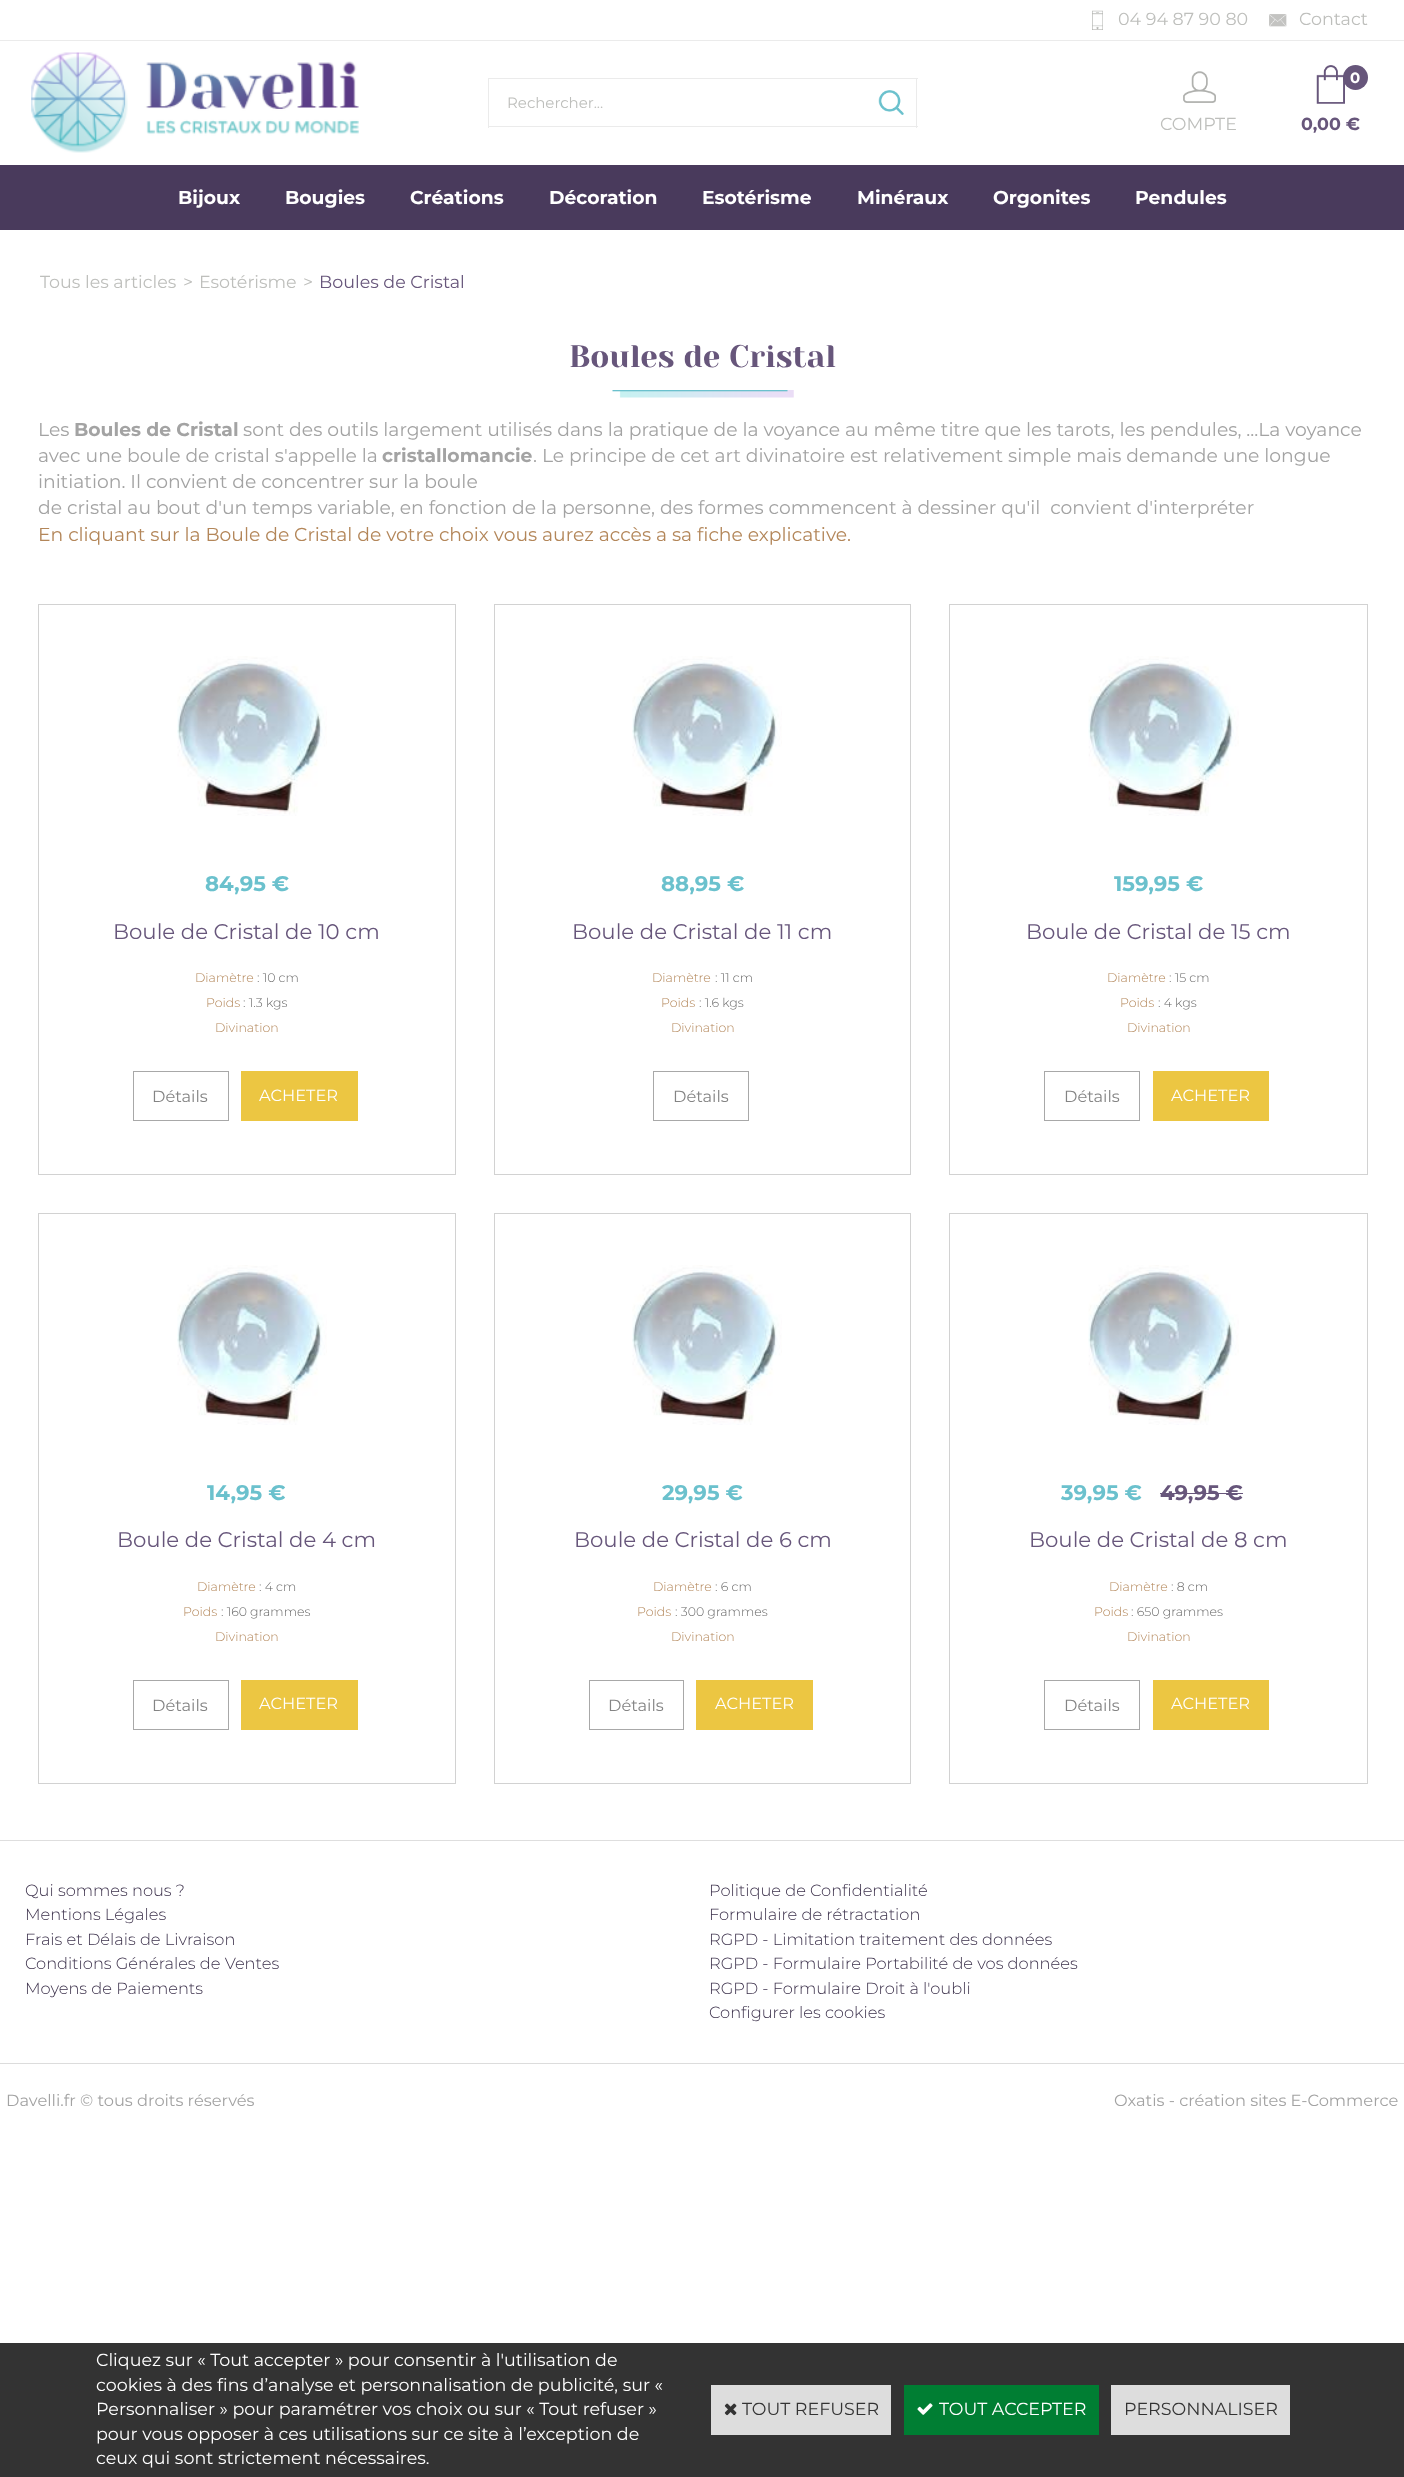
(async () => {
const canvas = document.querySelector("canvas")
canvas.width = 1404
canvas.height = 2477
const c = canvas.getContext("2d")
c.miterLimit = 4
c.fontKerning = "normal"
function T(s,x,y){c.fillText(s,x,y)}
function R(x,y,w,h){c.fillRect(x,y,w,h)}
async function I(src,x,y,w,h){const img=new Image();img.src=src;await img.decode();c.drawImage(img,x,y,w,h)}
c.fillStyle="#fff"
R(0,0,1404,2477)
c.fillStyle="#ebebeb"
R(0,40,1404,1)
await I("1.png",1092,10,11,20)
c.font="17.5px Montserrat"
c.fillStyle="#bebfbc"
T("04 94 87 90 80",1118,25)
await I("2.png",1269,14,18,13)
T("Contact",1299,25)
await I("3.png",31,52,328,101)
c.fillStyle="#ebebeb"
R(488,78,430,1)
R(488,126,378,1)
R(488,78,1,50)
c.font="15px Montserrat"
c.fillStyle="#bebfbc"
T("Rechercher...",507,108)
await I("4.png",878,90,26,25)
c.fillStyle="#ebebeb"
R(916,78,1,50)
R(866,126,52,1)
await I("5.png",1183,71,33,32)
c.font="17.5px Montserrat"
c.fillStyle="#bebfbc"
T("COMPTE",1160,130)
await I("6.png",1316,65,29,39)
c.fillStyle="#67567b"
c.beginPath()
c.arc(1355.5,77.5,12.5,0,7)
c.fill()
c.font="bold 15px Montserrat"
c.fillStyle="#fff"
T("0",1350,83)
c.font="bold 17.5px Montserrat"
c.fillStyle="#67567b"
T("0,00 €",1301,130)
c.fillStyle="#493a5c"
R(0,165,1404,65)
c.font="bold 18.75px Montserrat"
c.fillStyle="#fff"
T("Bijoux",178,204)
T("Bougies",285,204)
T("Créations",410,204)
T("Décoration",549,204)
T("Esotérisme",702,204)
T("Minéraux",857,204)
T("Orgonites",993,204)
T("Pendules",1135,204)
c.font="17.5px Montserrat"
c.fillStyle="#bebfbc"
T("Tous les articles",40,288)
T(">",183,288)
T("Esotérisme",199,288)
T(">",303,288)
c.fillStyle="#67567b"
T("Boules de Cristal",319,288)
await I("7.png",612,390,182,8)
c.font="31.25px Yeseva One"
T("Boules de Cristal",569,367)
c.font="18.75px Montserrat"
c.fillStyle="#a3a3a3"
T("Les",38,436)
c.font="bold 18.75px Montserrat"
T("Boules de Cristal",74,436)
c.font="18.75px Montserrat"
T("sont des outils largement utilisés dans la pratique de la voyance au même titre que les tarots, les pendules, ...La voyance",243,436)
T("avec une boule de cristal s'appelle la",38,462)
c.font="bold 18.75px Montserrat"
T("cristallomancie",382,462)
c.font="18.75px Montserrat"
T(". Le principe de cet art divinatoire est relativement simple mais demande une longue",533,462)
T("initiation. Il convient de concentrer sur la boule",38,488)
T("de cristal au bout d'un temps variable, en fonction de la personne, des formes commencent à dessiner qu'il  convient d'interpréter",38,514)
c.fillStyle="#b38659"
T("En cliquant sur la Boule de Cristal de votre choix vous aurez accès a sa fiche explicative.",38,541)
c.strokeStyle="#d2d2d2"
c.strokeRect(38.5,604.5,417,570)
await I("8.png",177,656,150,160)
c.font="bold 21.25px Montserrat"
c.fillStyle="#6bc1cd"
T("84,95 €",205,891)
c.font="21.25px Montserrat"
c.fillStyle="#67567b"
T("Boule de Cristal de 10 cm",113,939)
c.font="300 12.5px Montserrat"
c.fillStyle="#b38659"
T("Diamètre",195,982)
c.fillStyle="#666"
T(": 10 cm",257,982)
c.fillStyle="#b38659"
T("Poids",206,1007)
c.fillStyle="#666"
T(": 1.3 kgs",243,1007)
c.fillStyle="#b38659"
T("Divination",215,1032)
c.strokeStyle="#a8a8a8"
c.strokeRect(133.5,1071.5,95,49)
c.font="16.25px Montserrat"
c.fillStyle="#848484"
T("Détails",152,1102)
c.fillStyle="#ecc642"
R(241,1071,117,50)
c.fillStyle="#fff"
T("ACHETER",259,1101)
c.strokeStyle="#d2d2d2"
c.strokeRect(494.5,604.5,416,570)
await I("8.png",632,656,150,160)
c.font="bold 21.25px Montserrat"
c.fillStyle="#6bc1cd"
T("88,95 €",661,891)
c.font="21.25px Montserrat"
c.fillStyle="#67567b"
T("Boule de Cristal de 11 cm",572,939)
c.font="300 12.5px Montserrat"
c.fillStyle="#b38659"
T("Diamètre",652,982)
c.fillStyle="#666"
T(": 11 cm",715,982)
c.fillStyle="#b38659"
T("Poids",661,1007)
c.fillStyle="#666"
T(": 1.6 kgs",699,1007)
c.fillStyle="#b38659"
T("Divination",671,1032)
c.strokeStyle="#a8a8a8"
c.strokeRect(653.5,1071.5,95,49)
c.font="16.25px Montserrat"
c.fillStyle="#848484"
T("Détails",673,1102)
c.strokeStyle="#d2d2d2"
c.strokeRect(949.5,604.5,418,570)
await I("9.png",1088,656,151,160)
c.font="bold 21.25px Montserrat"
c.fillStyle="#6bc1cd"
T("159,95 €",1114,891)
c.font="21.25px Montserrat"
c.fillStyle="#67567b"
T("Boule de Cristal de 15 cm",1026,939)
c.font="300 12.5px Montserrat"
c.fillStyle="#b38659"
T("Diamètre",1107,982)
c.fillStyle="#666"
T(": 15 cm",1169,982)
c.fillStyle="#b38659"
T("Poids",1120,1007)
c.fillStyle="#666"
T(": 4 kgs",1158,1007)
c.fillStyle="#b38659"
T("Divination",1127,1032)
c.strokeStyle="#a8a8a8"
c.strokeRect(1044.5,1071.5,95,49)
c.font="16.25px Montserrat"
c.fillStyle="#848484"
T("Détails",1064,1102)
c.fillStyle="#ecc642"
R(1153,1071,116,50)
c.fillStyle="#fff"
T("ACHETER",1171,1101)
c.strokeStyle="#d2d2d2"
c.strokeRect(38.5,1213.5,417,570)
await I("10.png",177,1265,150,160)
c.font="bold 21.25px Montserrat"
c.fillStyle="#6bc1cd"
T("14,95 €",207,1500)
c.font="21.25px Montserrat"
c.fillStyle="#67567b"
T("Boule de Cristal de 4 cm",117,1547)
c.font="300 12.5px Montserrat"
c.fillStyle="#b38659"
T("Diamètre",197,1591)
c.fillStyle="#666"
T(": 4 cm",259,1591)
c.fillStyle="#b38659"
T("Poids",183,1616)
c.fillStyle="#666"
T(": 160 grammes",221,1616)
c.fillStyle="#b38659"
T("Divination",215,1641)
c.strokeStyle="#a8a8a8"
c.strokeRect(133.5,1680.5,95,49)
c.font="16.25px Montserrat"
c.fillStyle="#848484"
T("Détails",152,1711)
c.fillStyle="#ecc642"
R(241,1680,117,50)
c.fillStyle="#fff"
T("ACHETER",259,1709)
c.strokeStyle="#d2d2d2"
c.strokeRect(494.5,1213.5,416,570)
await I("10.png",632,1265,150,160)
c.font="bold 21.25px Montserrat"
c.fillStyle="#6bc1cd"
T("29,95 €",662,1500)
c.font="21.25px Montserrat"
c.fillStyle="#67567b"
T("Boule de Cristal de 6 cm",574,1547)
c.font="300 12.5px Montserrat"
c.fillStyle="#b38659"
T("Diamètre",653,1591)
c.fillStyle="#666"
T(": 6 cm",715,1591)
c.fillStyle="#b38659"
T("Poids",637,1616)
c.fillStyle="#666"
T(": 300 grammes",675,1616)
c.fillStyle="#b38659"
T("Divination",671,1641)
c.strokeStyle="#a8a8a8"
c.strokeRect(589.5,1680.5,94,49)
c.font="16.25px Montserrat"
c.fillStyle="#848484"
T("Détails",608,1711)
c.fillStyle="#ecc642"
R(696,1680,117,50)
c.fillStyle="#fff"
T("ACHETER",715,1709)
c.strokeStyle="#d2d2d2"
c.strokeRect(949.5,1213.5,418,570)
await I("11.png",1088,1265,151,160)
c.font="bold 21.25px Montserrat"
c.fillStyle="#6bc1cd"
T("39,95 €",1061,1500)
c.fillStyle="#67567b"
T("49,95 €",1160,1500)
R(1160,1493,83,1)
c.font="21.25px Montserrat"
T("Boule de Cristal de 8 cm",1029,1547)
c.font="300 12.5px Montserrat"
c.fillStyle="#b38659"
T("Diamètre",1109,1591)
c.fillStyle="#666"
T(": 8 cm",1171,1591)
c.fillStyle="#b38659"
T("Poids",1094,1616)
c.fillStyle="#666"
T(": 650 grammes",1131,1616)
c.fillStyle="#b38659"
T("Divination",1127,1641)
c.strokeStyle="#a8a8a8"
c.strokeRect(1044.5,1680.5,95,49)
c.font="16.25px Montserrat"
c.fillStyle="#848484"
T("Détails",1064,1711)
c.fillStyle="#ecc642"
R(1153,1680,116,50)
c.fillStyle="#fff"
T("ACHETER",1171,1709)
c.fillStyle="#dedede"
R(0,1840,1404,1)
c.font="300 16.25px Montserrat"
c.fillStyle="#3d324c"
T("Qui sommes nous ?",25,1896)
T("Mentions Légales",25,1920)
T("Frais et Délais de Livraison",25,1945)
T("Conditions Générales de Ventes",25,1969)
T("Moyens de Paiements",25,1994)
T("Politique de Confidentialité",709,1896)
T("Formulaire de rétractation",709,1920)
T("RGPD - Limitation traitement des données",709,1945)
T("RGPD - Formulaire Portabilité de vos données",709,1969)
T("RGPD - Formulaire Droit à l'oubli",709,1994)
T("Configurer les cookies",709,2018)
c.fillStyle="#dcdcdc"
R(0,2063,1404,1)
c.font="16.25px Montserrat"
c.fillStyle="#a3a3a3"
T("Davelli.fr © tous droits réservés",6,2106)
T("Oxatis - création sites E-Commerce",1114,2106)
c.fillStyle="#333"
R(0,2343,1404,134)
c.font="17.5px Montserrat"
c.fillStyle="#fff"
T("Cliquez sur « Tout accepter » pour consentir à l'utilisation de",96,2366)
T("cookies à des fins d’analyse et personnalisation de publicité, sur «",96,2391)
T("Personnaliser » pour paramétrer vos choix ou sur « Tout refuser »",96,2415)
T("pour vous opposer à ces utilisations sur ce site à l’exception de",96,2440)
T("ceux qui sont strictement nécessaires.",96,2464)
c.fillStyle="#ddd"
R(711,2385,180,50)
await I("12.png",724,2403,13,13)
c.fillStyle="#333"
T("TOUT REFUSER",742,2415)
c.fillStyle="#007e33"
R(904,2385,195,50)
await I("13.png",917,2403,16,12)
c.fillStyle="#fff"
T("TOUT ACCEPTER",939,2415)
c.fillStyle="#ddd"
R(1111,2385,179,50)
c.fillStyle="#333"
T("PERSONNALISER",1124,2415)
})()
